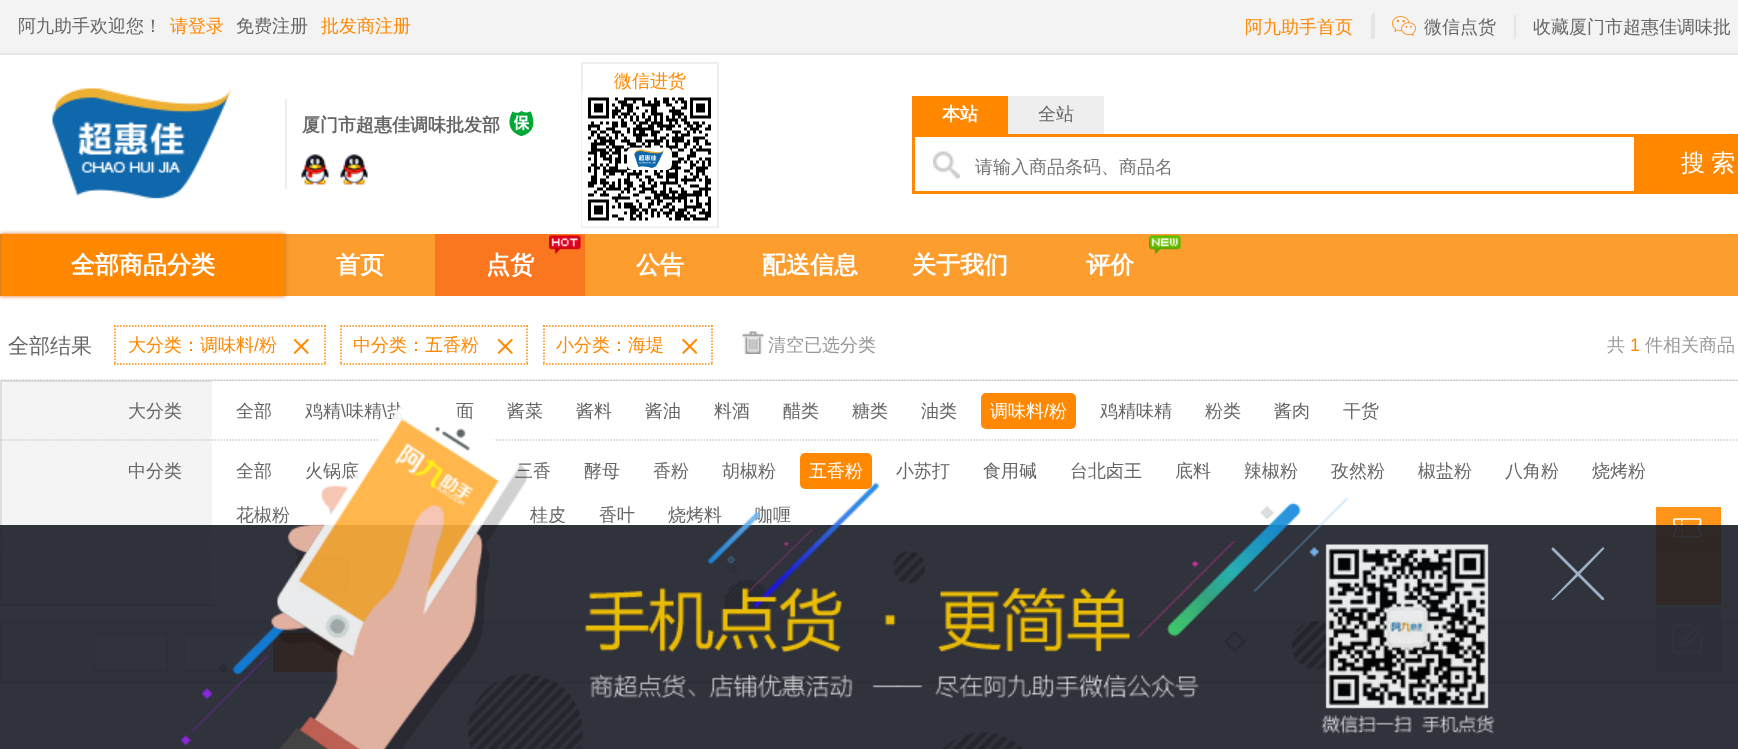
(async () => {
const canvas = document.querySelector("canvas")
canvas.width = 1738
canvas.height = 749
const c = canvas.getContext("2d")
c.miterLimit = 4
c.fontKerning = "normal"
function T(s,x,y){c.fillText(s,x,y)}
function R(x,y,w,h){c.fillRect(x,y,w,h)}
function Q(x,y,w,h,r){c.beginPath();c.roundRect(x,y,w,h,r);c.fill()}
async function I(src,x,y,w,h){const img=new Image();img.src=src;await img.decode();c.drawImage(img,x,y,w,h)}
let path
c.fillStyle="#fff"
R(0,0,1738,749)
c.fillStyle="#f3f3f3"
R(0,0,1738,53)
c.fillStyle="#e5e5e5"
R(0,53,1738,2)
c.font="500 18px WenQuanYi Zen Hei"
c.fillStyle="#666"
T("阿九助手欢迎您！",18,32)
c.fillStyle="#f80"
T("请登录",170,32)
c.fillStyle="#666"
T("免费注册",236,32)
c.fillStyle="#f80"
T("批发商注册",321,32)
c.fillStyle="#e5e5e5"
R(1371,15,2,24)
c.fillStyle="#f80"
T("阿九助手首页",1245,33)
c.fillStyle="#e5e5e5"
R(1373,12,2,27)
await I("1.png",1392,16,24,20)
c.fillStyle="#666"
T("微信点货",1424,33)
c.fillStyle="#e5e5e5"
R(1514,15,2,24)
c.fillStyle="#666"
T("收藏厦门市超惠佳调味批",1533,33)
c.strokeStyle="#eee"
c.lineWidth=2
c.strokeRect(582,63,136,164)
c.fillStyle="#f80"
T("微信进货",614,87)
await I("2.png",582,91,135,136)
await I("3.png",52,88,180,111)
c.fillStyle="#eee"
R(285,99,2,90)
c.font="bold 18px WenQuanYi Zen Hei"
c.fillStyle="#666"
T("厦门市超惠佳调味批发部",302,131)
await I("4.png",509,110,25,27)
await I("5.png",301,154,28,31)
await I("5.png",340,154,28,31)
c.fillStyle="#f80"
R(912,96,96,38)
c.fillStyle="#fff"
T("本站",942,120)
c.fillStyle="#eee"
R(1008,96,96,38)
c.font="500 18px WenQuanYi Zen Hei"
c.fillStyle="#666"
T("全站",1038,120)
c.fillStyle="#f80"
R(912,134,722,3)
R(912,191,722,3)
R(912,134,3,60)
await I("6.png",933,151,27,28)
c.fillStyle="#757575"
T("请输入商品条码、商品名",975,173)
c.fillStyle="#f80"
R(1634,134,104,60)
c.wordSpacing="-1px"
c.font="500 24px WenQuanYi Zen Hei"
c.fillStyle="#fff"
T("搜 索",1681,171)
c.fillStyle="#fc9d2d"
R(286,234,1452,62)
c.fillStyle="#de691b"
c.filter="blur(2px)"
c.beginPath()
c.rect(0,234,285,62)
c.fill()
c.filter="none"
c.fillStyle="#f80"
R(2,234,282,62)
c.fillStyle="#ea8c1d"
R(284,234,2,62)
c.fillStyle="#de841b"
R(0,234,2,62)
c.wordSpacing="0px"
c.font="bold 24px WenQuanYi Zen Hei"
c.fillStyle="#fff"
T("全部商品分类",71,273)
T("首页",336,273)
c.fillStyle="#fb771f"
R(435,234,150,62)
await I("7.png",549,235,32,19)
c.fillStyle="#fff"
T("点货",486,273)
T("公告",636,273)
T("配送信息",762,273)
T("关于我们",912,273)
await I("8.png",1149,235,32,19)
T("评价",1086,273)
c.font="500 21px WenQuanYi Zen Hei"
c.fillStyle="#666"
T("全部结果",8,353)
path = new Path2D("M114 326h211.5")
c.strokeStyle="#f80"
c.lineWidth=1.5
c.setLineDash([1.5,1.5])
c.stroke(path)
path = new Path2D("M325 325.5v39")
c.stroke(path)
path = new Path2D("M114 364h211.5")
c.stroke(path)
path = new Path2D("M115 325.5v39")
c.stroke(path)
c.font="500 18px WenQuanYi Zen Hei"
c.fillStyle="#f80"
T("大分类：调味料",128,351)
c.font="18px Liberation Sans"
T("/",254,351)
c.font="500 18px WenQuanYi Zen Hei"
T("粉",259,351)
await I("9.png",293,339,16,15)
path = new Path2D("M340.5 326h187.5")
c.stroke(path)
path = new Path2D("M527 325.5v39")
c.stroke(path)
path = new Path2D("M340.5 364h187.5")
c.stroke(path)
path = new Path2D("M341 325.5v39")
c.stroke(path)
T("中分类：五香粉",353,351)
await I("9.png",497,339,16,15)
path = new Path2D("M543 326h169.5")
c.stroke(path)
path = new Path2D("M712 325.5v39")
c.stroke(path)
path = new Path2D("M543 364h169.5")
c.stroke(path)
path = new Path2D("M544 325.5v39")
c.stroke(path)
T("小分类：海堤",556,351)
await I("10.png",682,339,16,15)
await I("11.png",742,331,22,23)
c.fillStyle="#999"
T("清空已选分类",768,351)
T("共",1607,351)
c.font="18px Liberation Sans"
c.fillStyle="#f80"
T("1",1630,351)
c.font="500 18px WenQuanYi Zen Hei"
c.fillStyle="#999"
T("件相关商品",1645,351)
c.fillStyle="#f4f4f4"
R(2,382,210,222)
c.strokeStyle="#ddd"
c.lineWidth=2
c.setLineDash([])
c.strokeRect(1,381,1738,224)
path = new Path2D("M1.5 380h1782")
c.strokeStyle="#ccc"
c.lineWidth=1.5
c.setLineDash([1.5,1.5])
c.stroke(path)
c.fillStyle="#666"
T("大分类",128,417)
c.fillStyle="#fff"
R(212,381,1526,1)
c.fillStyle="#666"
T("全部",236,417)
T("鸡精",305,417)
c.font="18px Liberation Sans"
T("\\",341,417)
c.font="500 18px WenQuanYi Zen Hei"
T("味精",346,417)
c.font="18px Liberation Sans"
T("\\",382,417)
c.font="500 18px WenQuanYi Zen Hei"
T("盐",387,417)
T("面",456,417)
T("酱菜",507,417)
T("酱料",576,417)
T("酱油",645,417)
T("料酒",714,417)
T("醋类",783,417)
T("糖类",852,417)
T("油类",921,417)
c.fillStyle="#f80"
Q(981,393,95,36,5)
c.fillStyle="#fff"
T("调味料",990,417)
c.font="18px Liberation Sans"
T("/",1044,417)
c.font="500 18px WenQuanYi Zen Hei"
T("粉",1049,417)
c.fillStyle="#666"
T("鸡精味精",1100,417)
T("粉类",1205,417)
T("酱肉",1274,417)
T("干货",1343,417)
path = new Path2D("M1.5 440h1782")
c.stroke(path)
T("中分类",128,477)
T("全部",236,477)
T("火锅底",305,477)
T("三香",515,477)
T("酵母",584,477)
T("香粉",653,477)
T("胡椒粉",722,477)
c.fillStyle="#f80"
Q(800,453,72,36,5)
c.fillStyle="#fff"
T("五香粉",809,477)
c.fillStyle="#666"
T("小苏打",896,477)
T("食用碱",983,477)
T("台北卤王",1070,477)
T("底料",1175,477)
T("辣椒粉",1244,477)
T("孜然粉",1331,477)
T("椒盐粉",1418,477)
T("八角粉",1505,477)
T("烧烤粉",1592,477)
T("花椒粉",236,521)
T("桂皮",530,521)
T("香叶",599,521)
T("烧烤料",668,521)
T("咖喱",755,521)
path = new Path2D("M1.5 544h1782")
c.stroke(path)
c.fillStyle="#fff"
R(212,604,1526,1)
c.fillStyle="#f80"
Q(296,557,54,36,5)
c.fillStyle="#f4f4f4"
c.beginPath()
c.rect(1,622,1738,61)
c.fill()
c.strokeStyle="#ddd"
c.lineWidth=2
c.setLineDash([])
c.stroke()
c.fillStyle="#fff"
c.beginPath()
c.rect(94,634,73,37)
c.fill()
c.stroke()
c.beginPath()
c.rect(184,634,73,37)
c.fill()
c.stroke()
c.fillStyle="#f80"
R(273,633,96,39)
await I("12.png",334,642,17,18)
await I("13.png",402,644,21,21)
c.fillStyle="#efefef"
c.beginPath()
c.rect(1567,634,100,37)
c.fill()
c.strokeStyle="#e5e5e5"
c.stroke()
c.beginPath()
c.rect(1675,634,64,37)
c.fill()
c.stroke()
c.strokeStyle="#eee"
c.strokeRect(1,703,343,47)
c.fillStyle="#ff8800e6"
R(1656,507,65,98)
await I("15.png",1673,518,29,20)
c.fillStyle="#d2d2d2e6"
R(1656,608,65,64)
await I("16.png",1672,624,31,30)
c.fillStyle="#1a1c27e6"
R(0,525,1738,224)
await I("14.png",180,404,1315,345)
c.fillStyle="#9db2c7"
path = new Path2D("M1580 574l24-25c1-1-1-3-2-1l-24 24l-24-24c-2-1-3 0-2 2l24 24l-24 25c-1 1 0 1 1 1l25-24l24 24c1 1 3-1 2-2z")
c.fill(path)
})()
